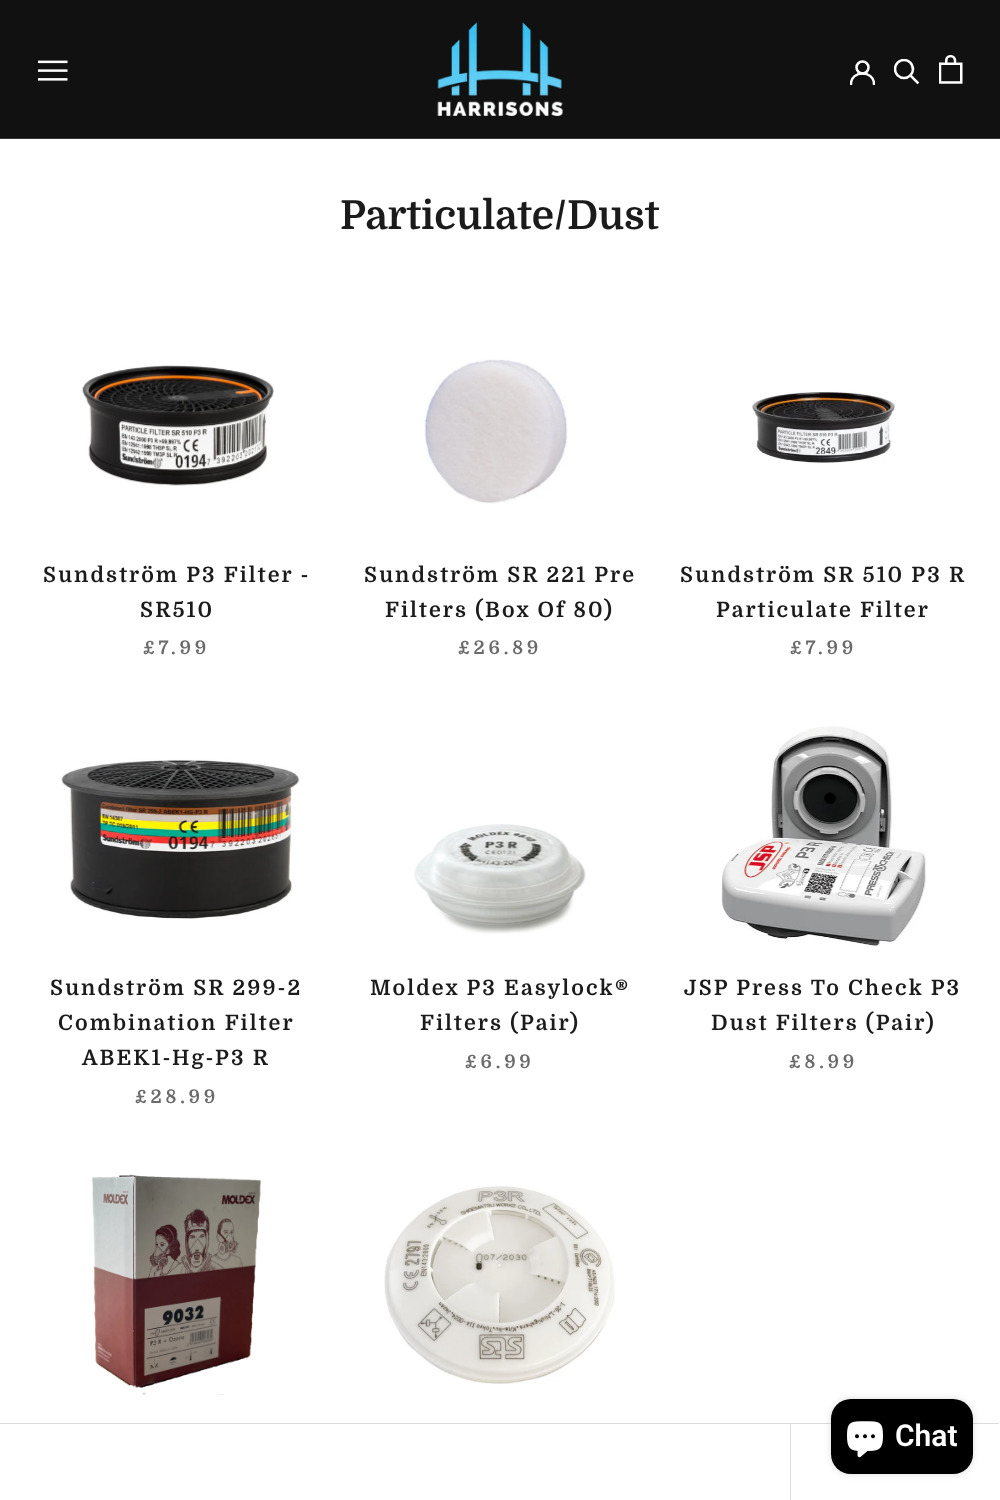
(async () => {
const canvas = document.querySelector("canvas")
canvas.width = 1000
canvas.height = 1500
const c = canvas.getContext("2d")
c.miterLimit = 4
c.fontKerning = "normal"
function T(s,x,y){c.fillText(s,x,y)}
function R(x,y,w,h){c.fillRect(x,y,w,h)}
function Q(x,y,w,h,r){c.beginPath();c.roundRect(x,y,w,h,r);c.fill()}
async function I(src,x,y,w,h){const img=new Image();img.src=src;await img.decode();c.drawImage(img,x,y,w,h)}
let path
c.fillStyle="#fff"
R(0,0,1000,1500)
c.fillStyle="#111"
R(0,0,1000,138)
c.fillStyle="#353535"
R(0,138,1000,1)
await I("1.png",38,60,30,21)
await I("2.png",437,22,126,94)
c.save()
c.beginPath()
c.rect(850,60,25,25)
c.clip()
path = new Path2D("M851 84c0-14 23-14 23 0")
c.strokeStyle="#fff"
c.lineWidth=2.5
c.lineCap="square"
c.stroke(path)
c.restore()
c.beginPath()
c.arc(862.5,67.5,6,0,7)
c.strokeStyle="#fff"
c.lineWidth=2.5
c.stroke()
path = new Path2D("M917.5 82.5l-7-7")
c.lineCap="square"
c.stroke(path)
c.save()
c.beginPath()
c.rect(894,59,26,26)
c.clip()
c.beginPath()
c.arc(904,69,9,0,7)
c.stroke()
c.restore()
await I("3.png",939,55,24,29)
c.font="bold 40px Domine"
c.fillStyle="#1c1b1b"
T("Particulate/Dust",340,229)
await I("4.png",82,365,192,121)
c.letterSpacing="2.1px"
c.font="bold 21.25px Domine"
T("Sundström P3 Filter -",43,582)
T("SR510",140,617)
c.letterSpacing="3.75px"
c.font="bold 18.75px Domine"
c.fillStyle="#6a6a6a"
T("£7.99",143,654)
await I("5.png",424,359,144,145)
c.letterSpacing="2.1px"
c.font="bold 21.25px Domine"
c.fillStyle="#1c1b1b"
T("Sundström SR 221 Pre",364,582)
T("Filters (Box Of 80)",385,617)
c.letterSpacing="3.75px"
c.font="bold 18.75px Domine"
c.fillStyle="#6a6a6a"
T("£26.89",458,654)
await I("6.png",752,391,144,72)
c.letterSpacing="2.1px"
c.font="bold 21.25px Domine"
c.fillStyle="#1c1b1b"
T("Sundström SR 510 P3 R",680,582)
T("Particulate Filter",716,617)
c.letterSpacing="3.75px"
c.font="bold 18.75px Domine"
c.fillStyle="#6a6a6a"
T("£7.99",790,654)
await I("7.png",61,759,239,160)
c.letterSpacing="2.1px"
c.font="bold 21.25px Domine"
c.fillStyle="#1c1b1b"
T("Sundström SR 299-2",50,995)
T("Combination Filter",58,1030)
T("ABEK1-Hg-P3 R",82,1065)
c.letterSpacing="3.75px"
c.font="bold 18.75px Domine"
c.fillStyle="#6a6a6a"
T("£28.99",135,1103)
await I("8.png",414,824,172,110)
c.letterSpacing="2.1px"
c.font="bold 21.25px Domine"
c.fillStyle="#1c1b1b"
T("Moldex P3 Easylock®",370,995)
T("Filters (Pair)",420,1030)
c.letterSpacing="3.75px"
c.font="bold 18.75px Domine"
c.fillStyle="#6a6a6a"
T("£6.99",465,1068)
await I("9.png",721,726,205,220)
c.letterSpacing="2.1px"
c.font="bold 21.25px Domine"
c.fillStyle="#1c1b1b"
T("JSP Press To Check P3",684,995)
T("Dust Filters (Pair)",711,1030)
c.letterSpacing="3.75px"
c.font="bold 18.75px Domine"
c.fillStyle="#6a6a6a"
T("£8.99",789,1068)
await I("10.png",91,1174,170,221)
await I("11.png",384,1186,231,198)
c.fillStyle="#ddd"
path = new Path2D("M-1 1423v76h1v-75h999v-1z")
c.fill(path)
R(790,1424,1,76)
c.fillStyle="#00000026"
c.filter="blur(3px)"
c.beginPath()
c.roundRect(831,1399,142,75,20)
c.fill()
c.filter="none"
c.fillStyle="#000"
Q(831,1399,142,75,20)
await I("12.png",847,1421,36,37)
c.letterSpacing="0px"
c.font="600 30px Roboto"
c.fillStyle="#fff"
T("Chat",895,1446)
})()
